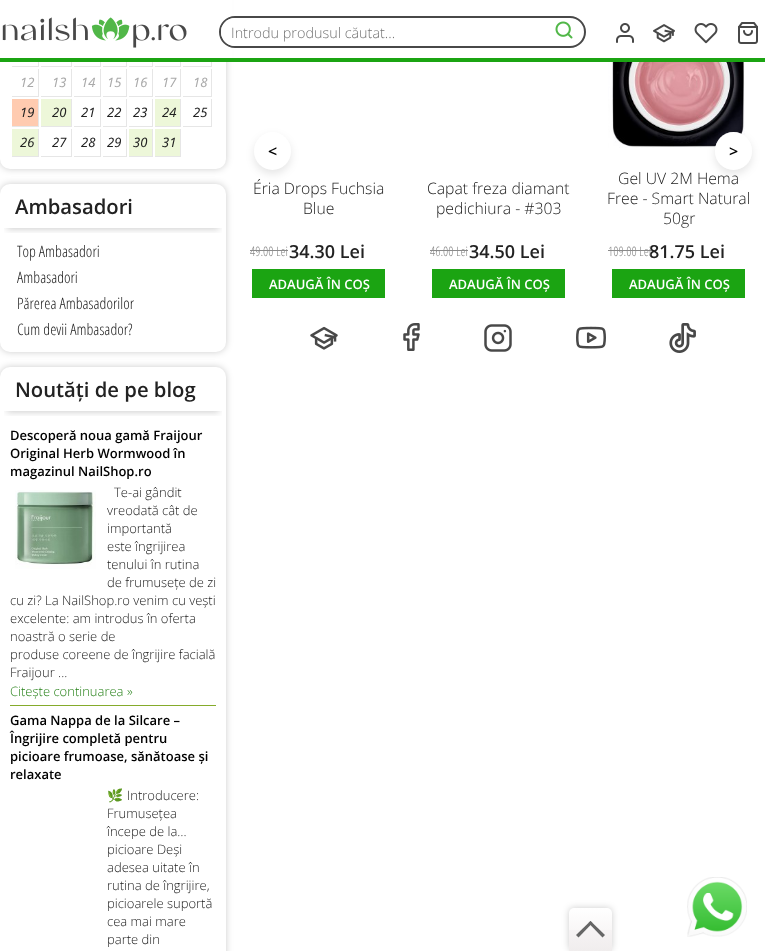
(async () => {
const canvas = document.querySelector("canvas")
canvas.width = 765
canvas.height = 951
const c = canvas.getContext("2d")
c.miterLimit = 4
c.fontKerning = "normal"
function T(s,x,y){c.fillText(s,x,y)}
function R(x,y,w,h){c.fillRect(x,y,w,h)}
function Q(x,y,w,h,r){c.beginPath();c.roundRect(x,y,w,h,r);c.fill()}
async function I(src,x,y,w,h){const img=new Image();img.src=src;await img.decode();c.drawImage(img,x,y,w,h)}
let gradient, path
c.fillStyle="#fff"
R(0,0,765,951)
c.fillStyle="#00000033"
c.filter="blur(3.5px)"
c.beginPath()
c.roundRect(0,-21,226,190,10)
c.fill()
c.filter="none"
c.fillStyle="#fff"
R(226,0,6,58)
Q(0,-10,226,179,10)
c.fillStyle="#1ba412"
R(0,58,765,4)
await I("1.png",2,17,185,31)
c.beginPath()
c.roundRect(220,17,365,30,15)
c.strokeStyle="#484848"
c.lineWidth=2
c.stroke()
c.fillStyle="#fff"
c.beginPath()
c.roundRect(221,18,327,28,[14,0,0,14])
c.fill()
c.font="300 14.4px Open Sans"
c.fillStyle="#757575"
T("Introdu produsul căutat...",231,38)
await I("2.png",555,21,18,18)
await I("3.png",616,23,18,20)
await I("4.png",653,24,22,19)
await I("5.png",694,23,24,21)
await I("6.png",738,22,20,22)
c.fillStyle="#e6e6e6"
R(38,62,1,5)
R(12,66,27,1)
R(71,62,1,5)
R(41,66,31,1)
R(100,62,1,5)
R(74,66,27,1)
R(126,62,1,5)
R(103,66,24,1)
R(152,62,1,5)
R(129,66,24,1)
R(180,62,1,5)
R(155,66,26,1)
R(211,62,1,5)
R(183,66,29,1)
R(38,69,1,28)
R(12,96,27,1)
c.font="italic 13px Noto Sans"
c.fillStyle="#aaa"
T("12",20,87)
c.fillStyle="#e6e6e6"
R(71,69,1,28)
R(41,96,31,1)
c.fillStyle="#aaa"
T("13",52,87)
c.fillStyle="#e6e6e6"
R(100,69,1,28)
R(74,96,27,1)
c.fillStyle="#aaa"
T("14",81,87)
c.fillStyle="#e6e6e6"
R(126,69,1,28)
R(103,96,24,1)
c.fillStyle="#aaa"
T("15",107,87)
c.fillStyle="#e6e6e6"
R(152,69,1,28)
R(129,96,24,1)
c.fillStyle="#aaa"
T("16",133,87)
c.fillStyle="#e6e6e6"
R(180,69,1,28)
R(155,96,26,1)
c.fillStyle="#aaa"
T("17",162,87)
c.fillStyle="#e6e6e6"
R(211,69,1,28)
R(183,96,29,1)
c.fillStyle="#aaa"
T("18",193,87)
c.fillStyle="#ffcbb0"
R(12,99,26,27)
c.fillStyle="#e6e6e6"
R(38,99,1,28)
R(12,126,27,1)
c.fillStyle="#222"
T("19",20,117)
c.fillStyle="#edf7d9"
R(41,99,30,27)
c.fillStyle="#e6e6e6"
R(71,99,1,28)
R(41,126,31,1)
c.fillStyle="#222"
T("20",52,117)
c.fillStyle="#e6e6e6"
R(100,99,1,28)
R(74,126,27,1)
c.fillStyle="#222"
T("21",81,117)
c.fillStyle="#e6e6e6"
R(126,99,1,28)
R(103,126,24,1)
c.fillStyle="#222"
T("22",107,117)
c.fillStyle="#e6e6e6"
R(152,99,1,28)
R(129,126,24,1)
c.fillStyle="#222"
T("23",133,117)
c.fillStyle="#edf7d9"
R(155,99,25,27)
c.fillStyle="#e6e6e6"
R(180,99,1,28)
R(155,126,26,1)
c.fillStyle="#222"
T("24",162,117)
c.fillStyle="#e6e6e6"
R(211,99,1,28)
R(183,126,29,1)
c.fillStyle="#222"
T("25",193,117)
c.fillStyle="#edf7d9"
R(12,129,26,27)
c.fillStyle="#e6e6e6"
R(38,129,1,28)
R(12,156,27,1)
c.fillStyle="#222"
T("26",20,147)
c.fillStyle="#e6e6e6"
R(71,129,1,28)
R(41,156,31,1)
c.fillStyle="#222"
T("27",52,147)
c.fillStyle="#e6e6e6"
R(100,129,1,28)
R(74,156,27,1)
c.fillStyle="#222"
T("28",81,147)
c.fillStyle="#e6e6e6"
R(126,129,1,28)
R(103,156,24,1)
c.fillStyle="#222"
T("29",107,147)
c.fillStyle="#edf7d9"
R(129,129,23,27)
c.fillStyle="#e6e6e6"
R(152,129,1,28)
R(129,156,24,1)
c.fillStyle="#222"
T("30",133,147)
c.fillStyle="#edf7d9"
R(155,129,25,27)
c.fillStyle="#e6e6e6"
R(180,129,1,28)
R(155,156,26,1)
c.fillStyle="#222"
T("31",162,147)
c.fillStyle="#00000033"
c.filter="blur(3.5px)"
c.beginPath()
c.roundRect(0,184,226,168,10)
c.fill()
c.filter="none"
c.fillStyle="#fff"
Q(0,184,226,168,10)
c.save()
c.beginPath()
c.rect(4,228,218,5)
c.clip()
c.fillStyle="#00000033"
c.filter="blur(3.5px)"
c.beginPath()
c.rect(7,199,212,30)
c.fill()
c.filter="none"
c.restore()
c.font="600 20.25px Open Sans"
c.fillStyle="#222"
T("Ambasadori",15,214)
c.font="300 15.75px Open Sans Condensed"
T("Top Ambasadori",17,257)
T("Ambasadori",17,283)
T("Părerea Ambasadorilor",17,309)
T("Cum devii Ambasador?",17,335)
c.fillStyle="#00000033"
c.filter="blur(3.5px)"
c.beginPath()
c.roundRect(0,367,226,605,10)
c.fill()
c.filter="none"
c.fillStyle="#fff"
Q(0,367,226,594,10)
c.save()
c.beginPath()
c.rect(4,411,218,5)
c.clip()
c.fillStyle="#00000033"
c.filter="blur(3.5px)"
c.beginPath()
c.rect(7,382,212,30)
c.fill()
c.filter="none"
c.restore()
c.font="600 20.25px Open Sans"
c.fillStyle="#222"
T("Noutăți de pe blog",15,397)
c.fillStyle="#85ab2b"
R(10,705,206,1)
c.font="600 13px Open Sans"
c.fillStyle="#000"
T("Descoperă noua gamă Fraijour",10,440)
T("Original Herb Wormwood în",10,458)
T("magazinul NailShop.ro",10,476)
c.font="300 13px Open Sans"
c.fillStyle="#222"
T("Te-ai gândit",114,497)
T("vreodată cât de",107,515)
T("importantă",107,533)
T("este îngrijirea",107,551)
T("tenului în rutina",107,569)
T("de frumusețe de zi",107,587)
T("cu zi? La NailShop.ro venim cu vești",10,605)
T("excelente: am introdus în oferta",10,623)
T("noastră o serie de",10,641)
T("produse coreene de îngrijire facială",10,659)
T("Fraijour ...",10,677)
await I("7.png",15,490,81,79)
c.fillStyle="#268118"
T("Citește continuarea »",10,696)
c.font="600 13px Open Sans"
c.fillStyle="#000"
T("Gama Nappa de la Silcare –",10,725)
T("Îngrijire completă pentru",10,743)
T("picioare frumoase, sănătoase și",10,761)
T("relaxate",10,779)
c.font="13px Noto Color Emoji"
c.fillStyle="#222"
T("🌿",107,800)
c.font="300 13px Open Sans"
T("Introducere:",127,800)
T("Frumusețea",107,818)
T("începe de la…",107,836)
T("picioare Deși",107,854)
T("adesea uitate în",107,872)
T("rutina de îngrijire,",107,890)
T("picioarele suportă",107,908)
T("cea mai mare",107,926)
T("parte din",107,944)
c.fillStyle="#0000001a"
c.filter="blur(4px)"
c.beginPath()
c.roundRect(254,136,37,38,18.5)
c.fill()
c.filter="none"
c.fillStyle="#fff"
Q(254,132,37,38,18.5)
c.font="600 16px Open Sans"
c.fillStyle="#000"
T("<",268,157)
await I("8.png",608,62,137,86)
c.fillStyle="#0000001a"
c.filter="blur(4px)"
c.beginPath()
c.roundRect(715,136,37,38,18.5)
c.fill()
c.filter="none"
c.fillStyle="#fff"
Q(715,132,37,38,18.5)
c.beginPath()
c.roundRect(716,133,35,36,17.5)
c.strokeStyle="#ffffff80"
c.stroke()
c.fillStyle="#000"
T(">",729,157)
c.font="300 15.75px Open Sans"
c.fillStyle="#222"
T("Éria Drops Fuchsia",253,194)
T("Blue",303,214)
c.font="300 13px Open Sans Condensed"
c.fillStyle="#8a8a8a"
T("49.00 Lei",250,256)
R(250,250,38,1)
c.font="600 18px Open Sans"
c.fillStyle="#222"
T("34.30 Lei",289,258)
c.fillStyle="#1ba412"
R(252,269,133,29)
c.font="600 13px Open Sans"
c.fillStyle="#fff"
T("ADAUGĂ ÎN COȘ",269,289)
c.font="300 15.75px Open Sans"
c.fillStyle="#222"
T("Capat freza diamant",427,194)
T("pedichiura - #303",436,214)
c.font="300 13px Open Sans Condensed"
c.fillStyle="#8a8a8a"
T("46.00 Lei",430,256)
R(430,250,38,1)
c.font="600 18px Open Sans"
c.fillStyle="#222"
T("34.50 Lei",469,258)
c.fillStyle="#1ba412"
R(432,269,133,29)
c.font="600 13px Open Sans"
c.fillStyle="#fff"
T("ADAUGĂ ÎN COȘ",449,289)
c.font="300 15.75px Open Sans"
c.fillStyle="#222"
T("Gel UV 2M Hema",618,184)
T("Free - Smart Natural",607,204)
T("50gr",663,224)
c.font="600 18px Open Sans"
T("81.75 Lei",649,258)
c.font="300 13px Open Sans Condensed"
c.fillStyle="#8a8a8a"
T("109.00 Lei",608,256)
R(608,250,43,1)
c.fillStyle="#1ba412"
R(612,269,133,29)
c.font="600 13px Open Sans"
c.fillStyle="#fff"
T("ADAUGĂ ÎN COȘ",629,289)
await I("9.png",310,326,28,24)
await I("10.png",403,323,17,28)
await I("11.png",484,324,28,28)
await I("12.png",576,326,30,23)
await I("13.png",669,323,27,30)
c.fillStyle="#00000033"
c.filter="blur(3.5px)"
c.beginPath()
c.roundRect(569,908,43,43,5)
c.fill()
c.filter="none"
gradient = c.createLinearGradient(591,908,591,951)
gradient.addColorStop(0,"#fff")
gradient.addColorStop(.5,"#f9f7f7")
gradient.addColorStop(.5,"#f6f3f4")
gradient.addColorStop(1,"#f0eded")
c.fillStyle = gradient
c.beginPath()
c.roundRect(569,908,43,43,[5,5,0,0])
c.fill()
c.fillStyle="#666"
path = new Path2D("M576 935l14.5-14l2 2l-14 14.5z")
c.fill(path)
path = new Path2D("M588.5 923l2-2l14.5 14l-2.5 2.5z")
c.fill(path)
await I("14.png",687,877,60,60)
})()
